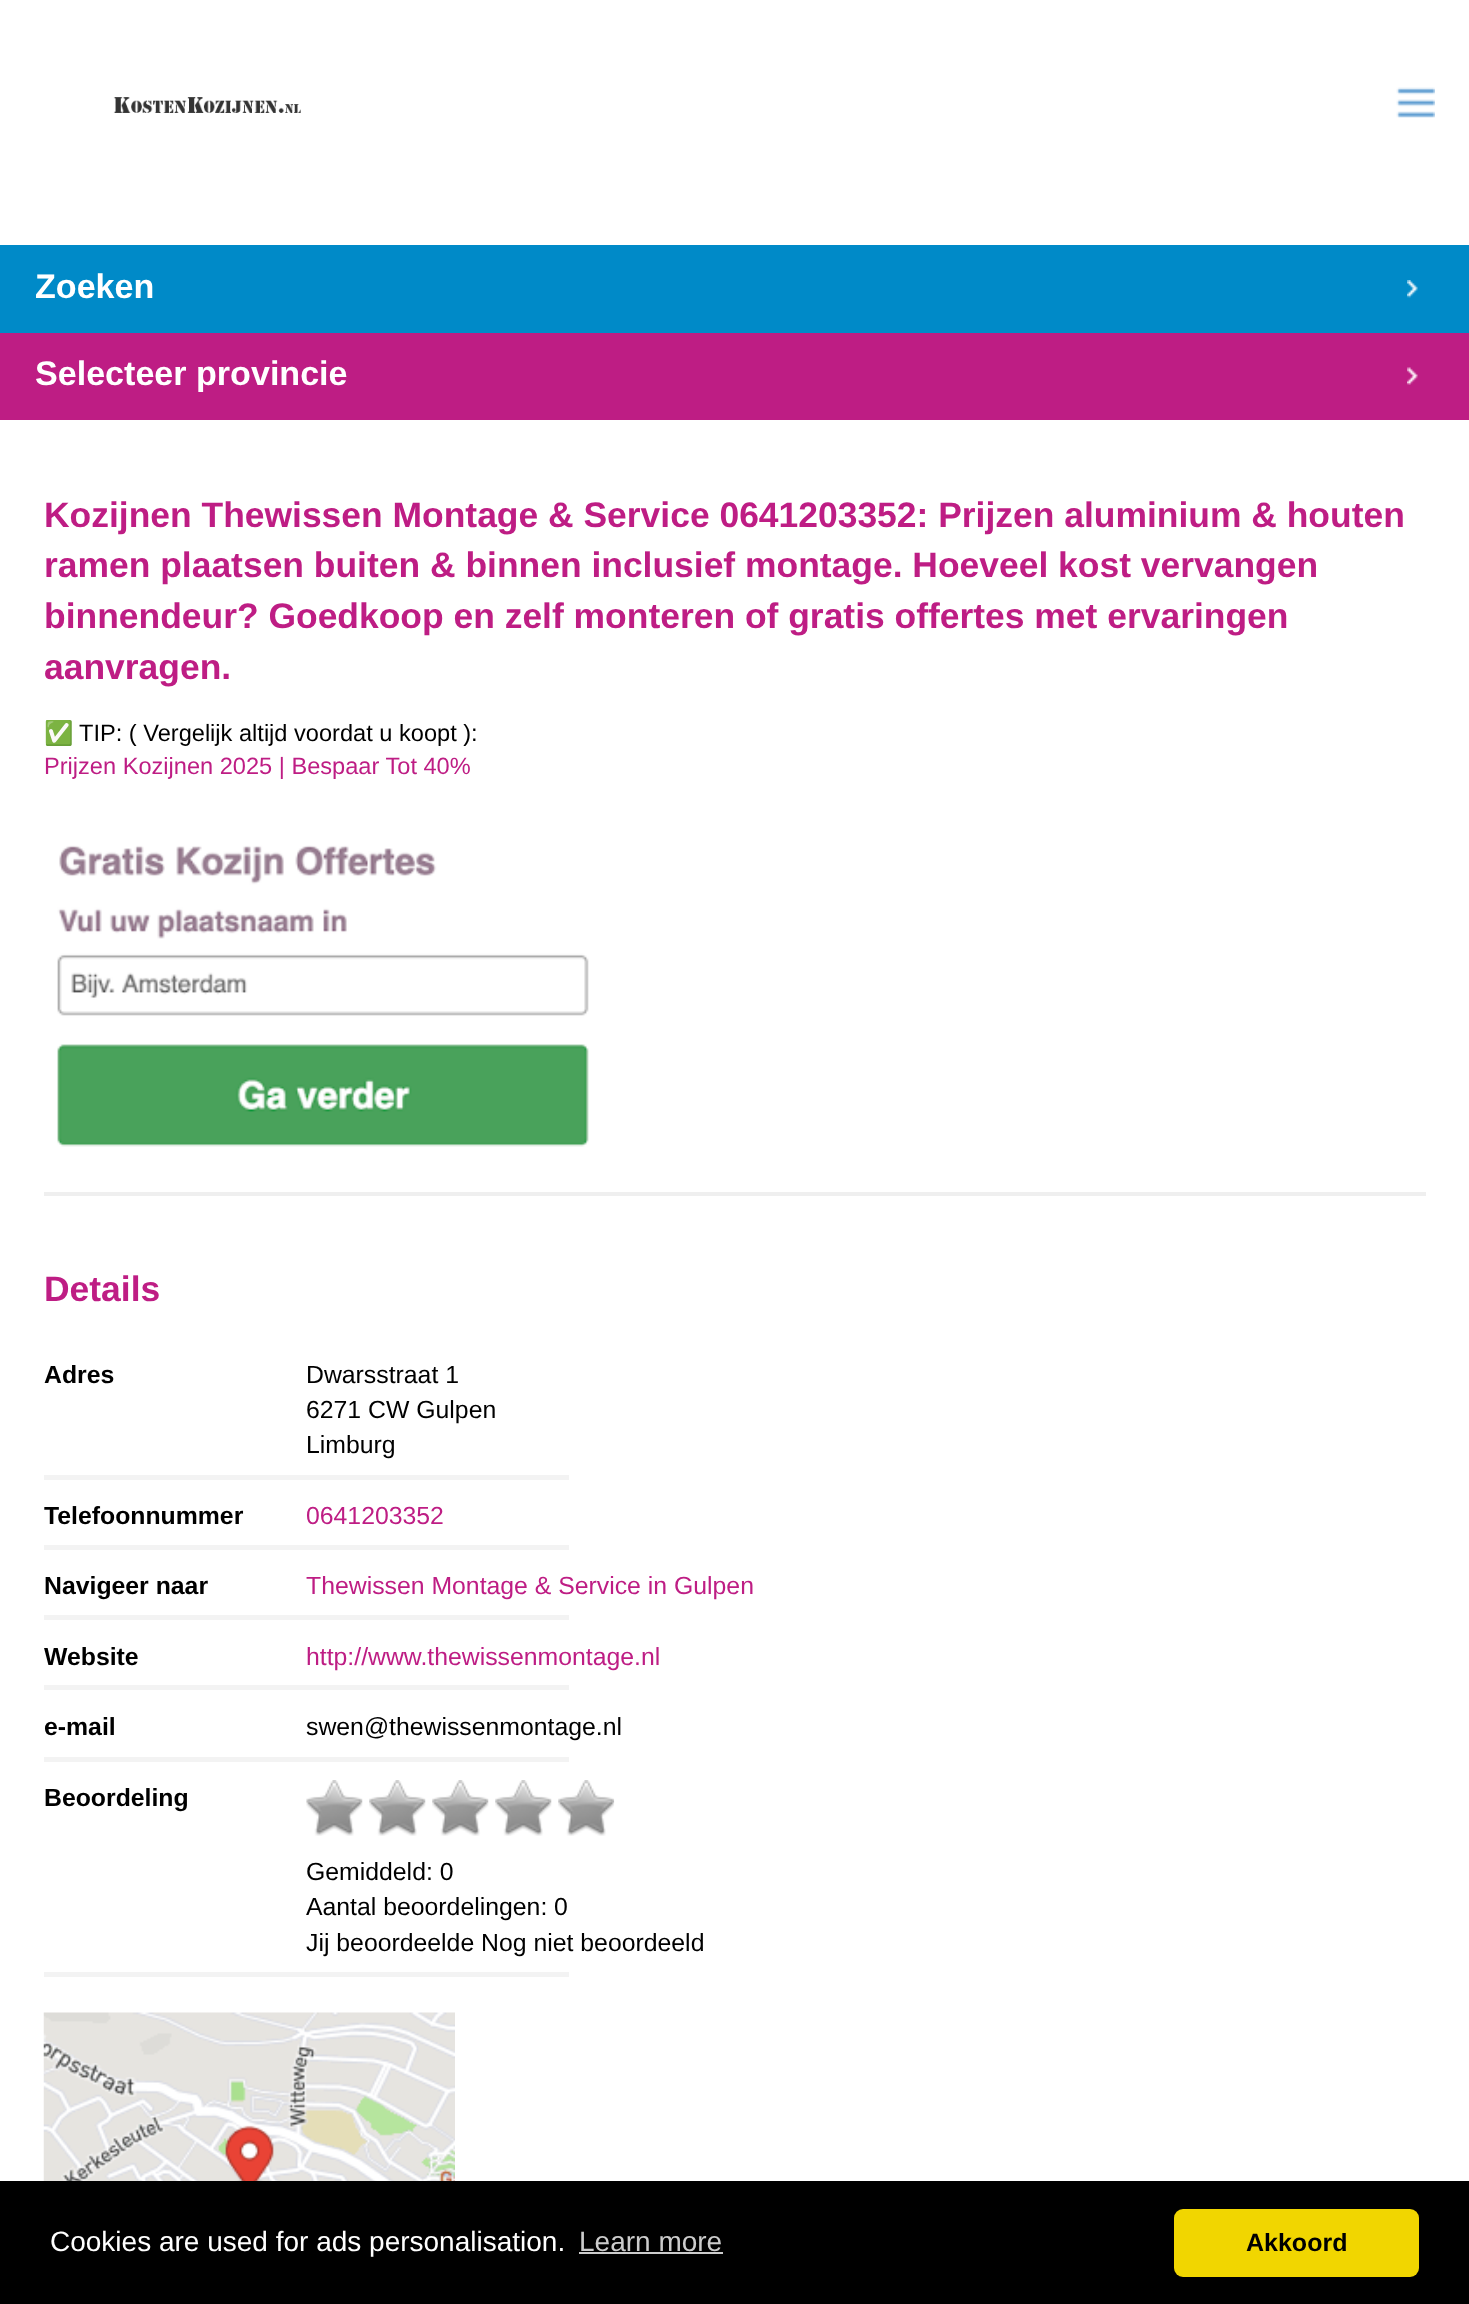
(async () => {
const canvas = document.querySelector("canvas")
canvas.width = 1469
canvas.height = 2304
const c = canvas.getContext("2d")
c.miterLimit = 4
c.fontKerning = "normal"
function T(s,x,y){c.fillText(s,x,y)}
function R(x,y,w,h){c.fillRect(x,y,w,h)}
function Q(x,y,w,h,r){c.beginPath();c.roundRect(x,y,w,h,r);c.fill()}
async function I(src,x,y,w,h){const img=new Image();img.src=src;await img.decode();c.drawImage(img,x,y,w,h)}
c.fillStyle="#fff"
R(0,0,1469,2304)
await I("1.png",113,97,188,16)
await I("2.png",1396,87,39,31)
c.fillStyle="#008ac8"
R(0,245,1469,88)
await I("3.png",1407,280,11,18)
c.font="bold 34.1px Liberation Sans"
c.fillStyle="#fff"
T("Zoeken",35,298)
c.fillStyle="#be1d84"
R(0,333,1469,87)
await I("4.png",1407,367,11,18)
c.fillStyle="#fff"
T("Selecteer provincie",35,385)
c.fillStyle="#efefef"
R(44,1192,1382,4)
c.font="bold 35.45px Liberation Sans"
c.fillStyle="#be1d84"
T("Kozijnen Thewissen Montage & Service 0641203352: Prijzen aluminium & houten",44,527)
T("ramen plaatsen buiten & binnen inclusief montage. Hoeveel kost vervangen",44,577)
T("binnendeur? Goedkoop en zelf monteren of gratis offertes met ervaringen",44,628)
T("aanvragen.",44,679)
c.font="23.6px Noto Color Emoji"
c.fillStyle="#000"
T("✅",44,741)
c.font="23.6px Liberation Sans"
T("TIP: ( Vergelijk altijd voordat u koopt ):",79,741)
c.fillStyle="#be1d84"
T("Prijzen Kozijnen 2025 | Bespaar Tot 40%",44,774)
await I("5.png",57,845,532,302)
c.font="bold 35.45px Liberation Sans"
T("Details",44,1301)
c.font="bold 24.8px Liberation Sans"
c.fillStyle="#000"
T("Adres",44,1383)
c.font="24.8px Liberation Sans"
T("Dwarsstraat 1",306,1383)
T("6271 CW Gulpen",306,1418)
T("Limburg",306,1453)
c.fillStyle="#f3f3f3"
R(44,1475,525,5)
c.font="bold 24.8px Liberation Sans"
c.fillStyle="#000"
T("Telefoonnummer",44,1524)
c.font="24.8px Liberation Sans"
c.fillStyle="#be1d84"
T("0641203352",306,1524)
c.fillStyle="#f3f3f3"
R(44,1545,525,5)
c.font="bold 24.8px Liberation Sans"
c.fillStyle="#000"
T("Navigeer naar",44,1594)
c.font="24.8px Liberation Sans"
c.fillStyle="#be1d84"
T("Thewissen Montage & Service in Gulpen",306,1594)
c.fillStyle="#f3f3f3"
R(44,1615,525,5)
c.font="bold 24.8px Liberation Sans"
c.fillStyle="#000"
T("Website",44,1665)
c.font="24.8px Liberation Sans"
c.fillStyle="#be1d84"
T("http://www.thewissenmontage.nl",306,1665)
c.fillStyle="#f3f3f3"
R(44,1685,525,5)
c.font="bold 24.8px Liberation Sans"
c.fillStyle="#000"
T("e-mail",44,1735)
c.font="24.8px Liberation Sans"
T("swen@thewissenmontage.nl",306,1735)
c.fillStyle="#f3f3f3"
R(44,1757,525,5)
c.font="bold 24.8px Liberation Sans"
c.fillStyle="#000"
T("Beoordeling",44,1806)
await I("6.png",306,1780,57,56)
await I("7.png",369,1780,57,56)
await I("7.png",432,1780,57,56)
await I("7.png",495,1780,57,56)
await I("8.png",558,1780,57,56)
c.font="24.8px Liberation Sans"
T("Gemiddeld: 0",306,1880)
T("Aantal beoordelingen:",306,1915)
T("0",554,1915)
T("Jij beoordeelde Nog niet beoordeeld",306,1951)
c.fillStyle="#f3f3f3"
R(44,1972,525,5)
await I("9.png",43,2012,412,169)
c.fillStyle="#000"
R(0,2181,1469,123)
c.font="28px Liberation Sans"
c.fillStyle="#fff"
T("Cookies are used for ads personalisation.",50,2251)
c.fillStyle="#ccc"
T("Learn more",579,2251)
R(579,2252,144,2)
c.fillStyle="#f1d600"
Q(1174,2209,245,68,9)
c.font="bold 25px Liberation Sans"
c.fillStyle="#000"
T("Akkoord",1246,2251)
})()
